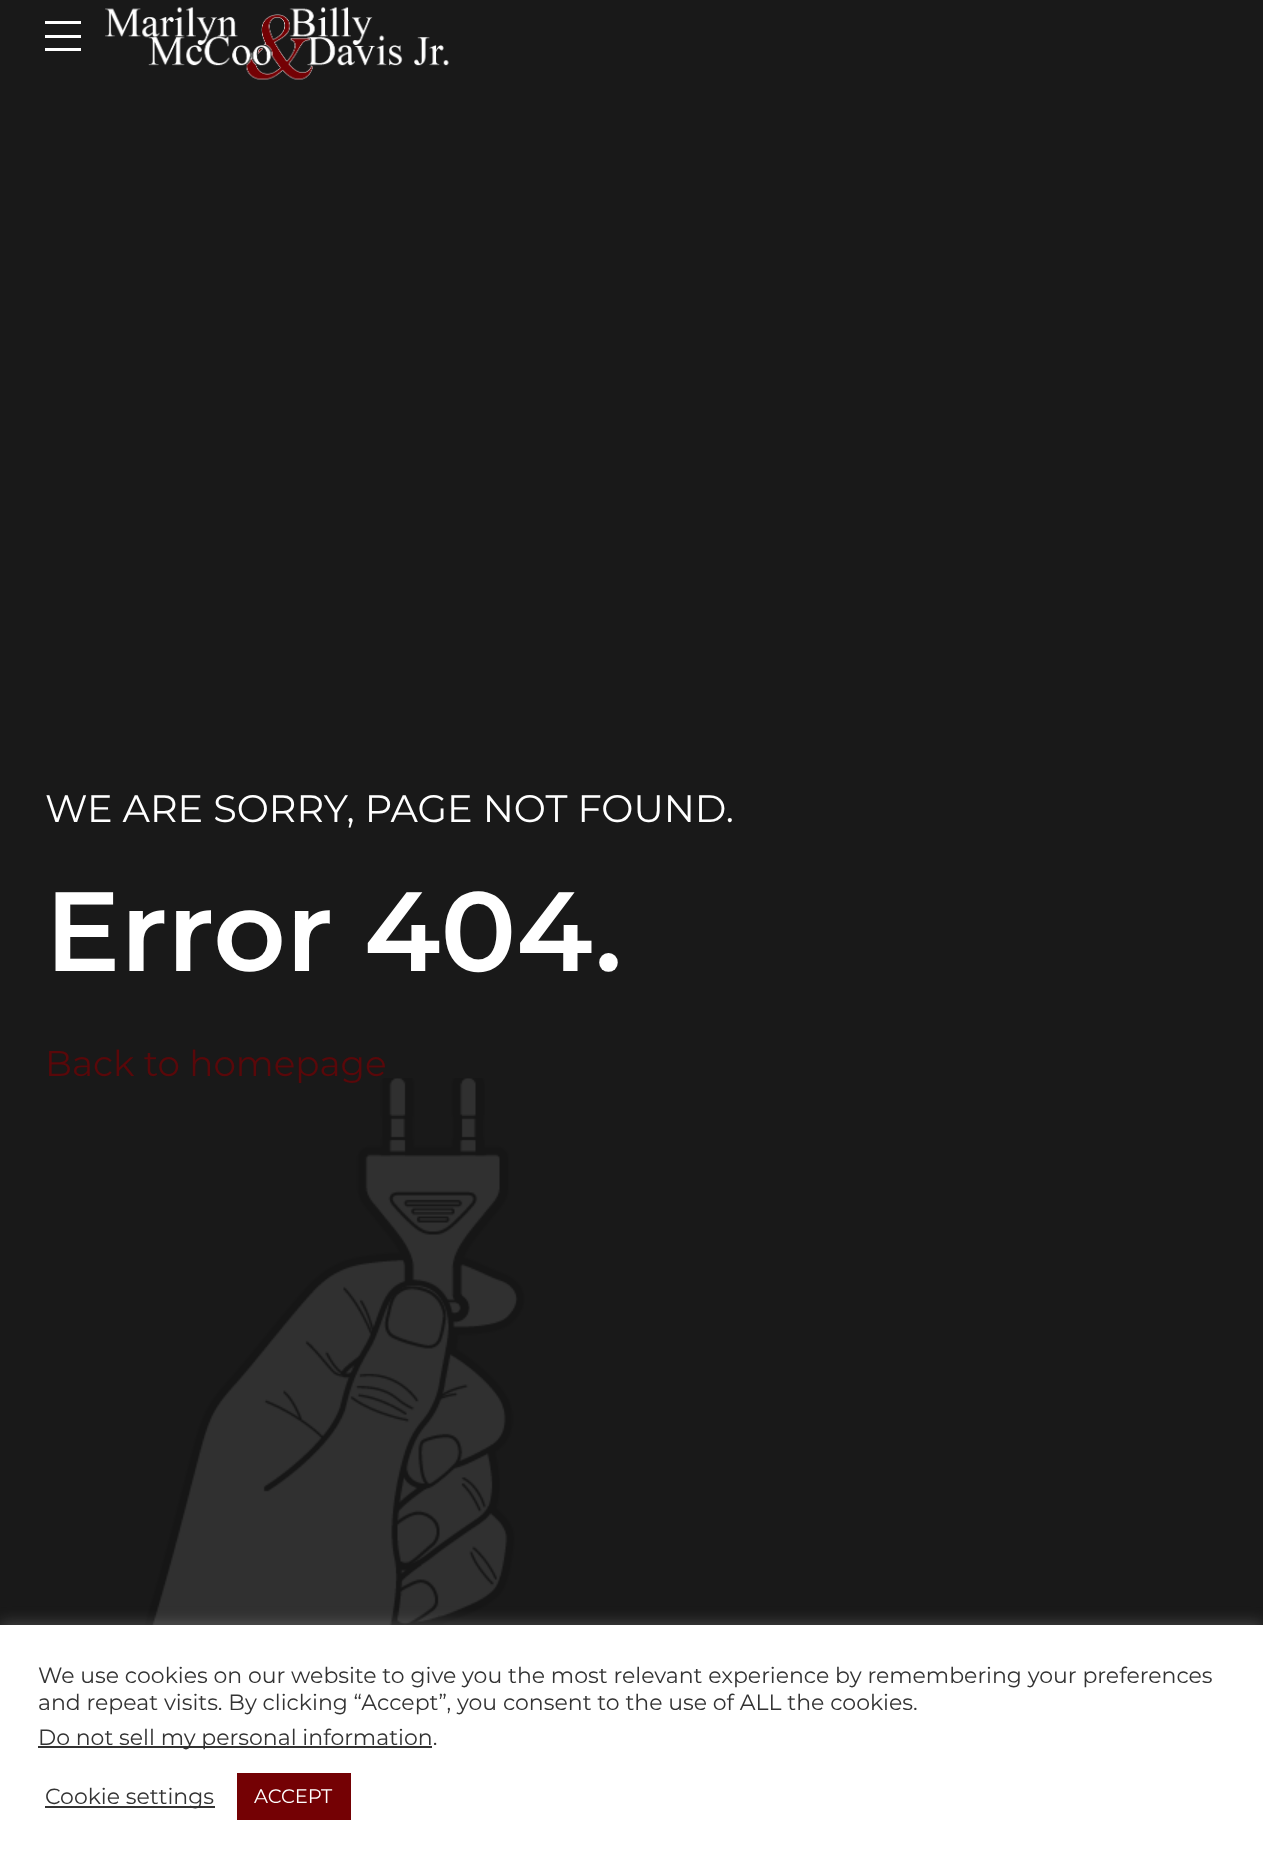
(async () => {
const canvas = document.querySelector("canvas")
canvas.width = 1263
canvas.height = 1864
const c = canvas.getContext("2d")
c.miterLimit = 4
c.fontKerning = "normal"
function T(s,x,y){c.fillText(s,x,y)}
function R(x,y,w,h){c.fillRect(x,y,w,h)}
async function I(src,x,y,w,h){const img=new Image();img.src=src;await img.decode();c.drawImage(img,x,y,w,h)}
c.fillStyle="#191919"
R(0,0,1263,1864)
c.fillStyle="#fff"
R(45,21,36,3)
R(45,35,36,3)
R(45,48,36,3)
await I("1.png",105,7,344,73)
await I("2.png",144,1078,381,547)
c.font="38.25px Montserrat"
T("WE ARE SORRY, PAGE NOT FOUND.",45,822)
c.font="600 112.5px Montserrat"
T("Error 404.",45,971)
c.font="35.75px Montserrat"
c.fillStyle="#59080a"
T("Back to homepage",45,1076)
c.fillStyle="#acabab4d"
c.filter="blur(7.5px)"
c.beginPath()
c.rect(0,1623,1263,240)
c.fill()
c.filter="none"
c.fillStyle="#fff"
R(0,1625,1263,239)
c.font="22px Montserrat"
c.fillStyle="#333"
T("We use cookies on our website to give you the most relevant experience by remembering your preferences",38,1683)
T("and repeat visits. By clicking “Accept”, you consent to the use of ALL the cookies.",38,1710)
R(38,1746,394,2)
T("Do not sell my personal information.",38,1745)
R(45,1806,170,2)
T("Cookie settings",45,1804)
c.fillStyle="#740104"
R(237,1773,114,47)
c.font="19.5px Montserrat"
c.fillStyle="#fff"
T("ACCEPT",254,1803)
})()
